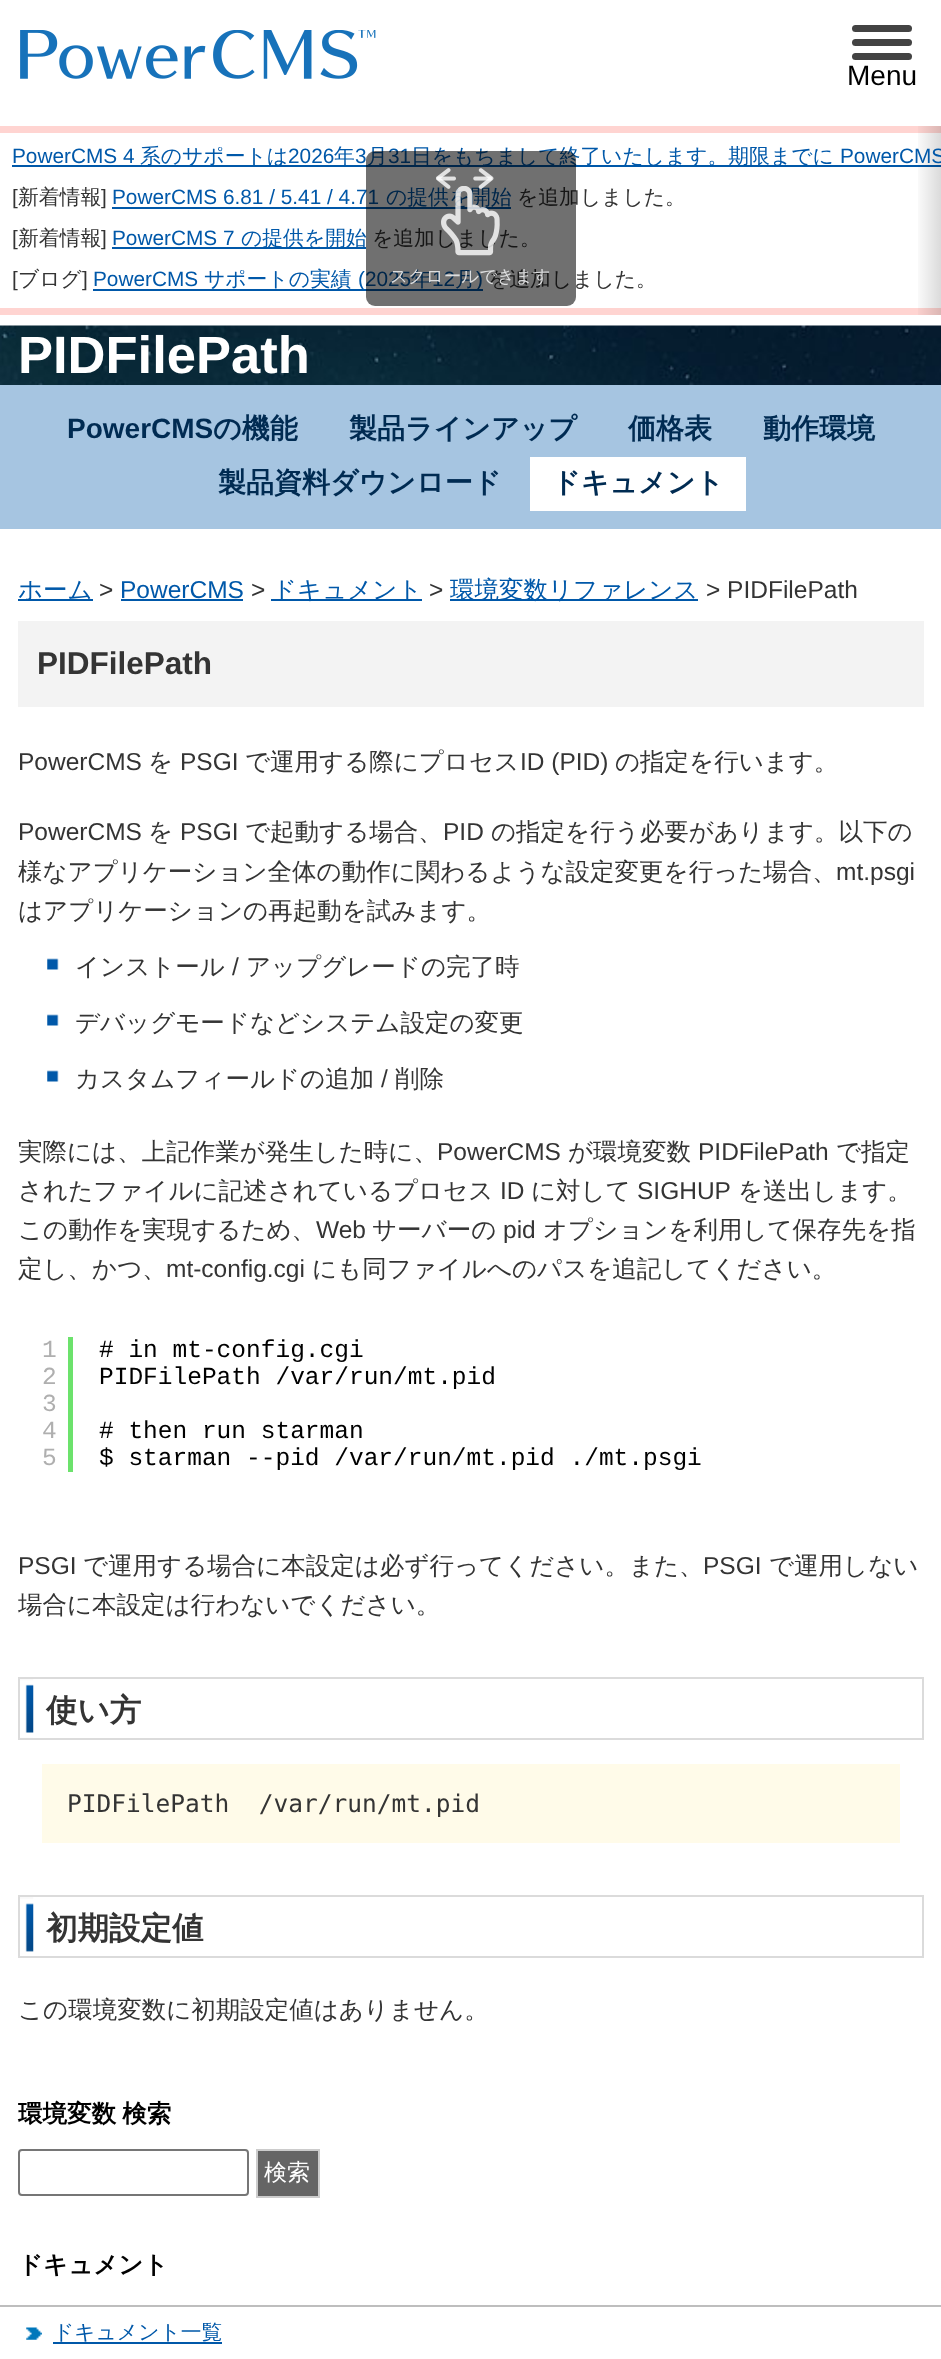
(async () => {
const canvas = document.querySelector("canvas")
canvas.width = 941
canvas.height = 2359
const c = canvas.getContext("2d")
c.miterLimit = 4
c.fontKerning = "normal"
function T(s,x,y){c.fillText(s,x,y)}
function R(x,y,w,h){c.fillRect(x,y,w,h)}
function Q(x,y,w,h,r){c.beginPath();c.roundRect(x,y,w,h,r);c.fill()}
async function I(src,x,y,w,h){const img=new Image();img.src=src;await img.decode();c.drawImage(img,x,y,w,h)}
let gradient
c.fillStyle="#fff"
R(0,0,941,2359)
await I("1.png",20,30,356,49)
c.fillStyle="#434343"
Q(852,25,60,7,3.5)
Q(852,53,60,7,3.5)
Q(852,39,60,7,3.5)
c.font="28px Liberation Sans"
c.fillStyle="#000"
T("Menu",847,85)
c.fillStyle="#ffd4d1"
R(0,126,941,7)
R(0,308,941,7)
c.fillStyle="#0058a9"
R(12,165,929,2)
gradient = c.createLinearGradient(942,221,907,221)
gradient.addColorStop(0,"#00000026")
gradient.addColorStop(.8,"#00000000")
gradient.addColorStop(1,"#00000000")
c.fillStyle = gradient
R(918,126,23,189)
c.font="20.8px Liberation Sans"
c.fillStyle="#0058a9"
T("PowerCMS 4",12,163)
c.font="500 20.8px WenQuanYi Zen Hei"
T("系のサポートは",140,163)
c.font="20.8px Liberation Sans"
T("2026",288,163)
c.font="500 20.8px WenQuanYi Zen Hei"
T("年",334,163)
c.font="20.8px Liberation Sans"
T("3",355,163)
c.font="500 20.8px WenQuanYi Zen Hei"
T("月",367,163)
c.font="20.8px Liberation Sans"
T("31",388,163)
c.font="500 20.8px WenQuanYi Zen Hei"
T("日をもちまして終了いたします。期限までに",411,163)
c.font="20.8px Liberation Sans"
T("PowerCMS",840,163)
c.fillStyle="#343434"
T("[",12,204)
c.font="500 20.8px WenQuanYi Zen Hei"
T("新着情報",18,204)
c.font="20.8px Liberation Sans"
T("]",101,204)
c.fillStyle="#0058a9"
T("PowerCMS 6.81 / 5.41 / 4.71",112,204)
R(112,207,399,2)
c.font="500 20.8px WenQuanYi Zen Hei"
T("の提供を開始",386,204)
c.fillStyle="#343434"
T("を追加しました。",517,204)
c.font="20.8px Liberation Sans"
T("[",12,245)
c.font="500 20.8px WenQuanYi Zen Hei"
T("新着情報",18,245)
c.font="20.8px Liberation Sans"
T("]",101,245)
c.fillStyle="#0058a9"
T("PowerCMS 7",112,245)
R(112,247,254,2)
c.font="500 20.8px WenQuanYi Zen Hei"
T("の提供を開始",241,245)
c.fillStyle="#343434"
T("を追加しました。",372,245)
c.font="20.8px Liberation Sans"
T("[",12,286)
c.font="500 20.8px WenQuanYi Zen Hei"
T("ブログ",18,286)
c.font="20.8px Liberation Sans"
T("]",82,286)
c.fillStyle="#0058a9"
T("PowerCMS",93,286)
R(93,289,390,2)
c.font="500 20.8px WenQuanYi Zen Hei"
T("サポートの実績",204,286)
c.font="20.8px Liberation Sans"
T("(2025",358,286)
c.font="500 20.8px WenQuanYi Zen Hei"
T("年",411,286)
c.font="20.8px Liberation Sans"
T("12",432,286)
c.font="500 20.8px WenQuanYi Zen Hei"
T("月",455,286)
c.font="20.8px Liberation Sans"
T(")",476,286)
c.font="500 20.8px WenQuanYi Zen Hei"
c.fillStyle="#343434"
T("を追加しました。",488,286)
c.fillStyle="#0000008f"
Q(366,151,210,155,9)
await I("3.png",441,186,59,70)
await I("2.png",436,168,58,21)
c.font="500 17.5px WenQuanYi Zen Hei"
c.fillStyle="#dddedf"
T("スクロールできます",390,282)
await I("4.png",0,325,941,60)
c.font="bold 52.5px Liberation Sans"
c.fillStyle="#fff"
T("PIDFilePath",18,373)
c.fillStyle="#a6c5e1"
R(0,385,941,144)
c.font="bold 28px Liberation Sans"
c.fillStyle="#002b52"
T("PowerCMS",67,438)
c.font="bold 28px WenQuanYi Zen Hei"
T("の機能",213,438)
T("製品ラインアップ",349,438)
T("価格表",628,438)
T("動作環境",763,438)
T("製品資料ダウンロード",218,492)
c.fillStyle="#fff"
R(530,457,216,54)
c.fillStyle="#002b52"
T("ドキュメント",552,492)
c.fillStyle="#0058a9"
R(18,599,75,2)
c.font="500 24.5px WenQuanYi Zen Hei"
T("ホーム",18,598)
c.font="24.5px Liberation Sans"
c.fillStyle="#343434"
T(">",99,598)
c.fillStyle="#0058a9"
T("PowerCMS",120,598)
R(121,599,122,2)
c.fillStyle="#343434"
T(">",251,598)
c.fillStyle="#0058a9"
R(271,599,151,2)
c.font="500 24.5px WenQuanYi Zen Hei"
T("ドキュメント",272,598)
c.font="24.5px Liberation Sans"
c.fillStyle="#343434"
T(">",429,598)
c.fillStyle="#0058a9"
R(450,599,248,2)
c.font="500 24.5px WenQuanYi Zen Hei"
T("環境変数リファレンス",450,598)
c.font="24.5px Liberation Sans"
c.fillStyle="#343434"
T("> PIDFilePath",706,598)
c.fillStyle="#f3f3f3"
R(18,621,906,86)
c.font="bold 31.5px Liberation Sans"
c.fillStyle="#343434"
T("PIDFilePath",37,674)
c.font="24.5px Liberation Sans"
T("PowerCMS",18,770)
c.font="500 24.5px WenQuanYi Zen Hei"
T("を",148,770)
c.font="24.5px Liberation Sans"
T("PSGI",180,770)
c.font="500 24.5px WenQuanYi Zen Hei"
T("で運用する際にプロセス",245,770)
c.font="24.5px Liberation Sans"
T("ID (PID)",520,770)
c.font="500 24.5px WenQuanYi Zen Hei"
T("の指定を行います。",615,770)
c.font="24.5px Liberation Sans"
T("PowerCMS",18,840)
c.font="500 24.5px WenQuanYi Zen Hei"
T("を",148,840)
c.font="24.5px Liberation Sans"
T("PSGI",180,840)
c.font="500 24.5px WenQuanYi Zen Hei"
T("で起動する場合、",245,840)
c.font="24.5px Liberation Sans"
T("PID",443,840)
c.font="500 24.5px WenQuanYi Zen Hei"
T("の指定を行う必要があります。以下の",491,840)
T("様なアプリケーション全体の動作に関わるような設定変更を行った場合、",18,880)
c.font="24.5px Liberation Sans"
T("mt.psgi",836,880)
c.font="500 24.5px WenQuanYi Zen Hei"
T("はアプリケーションの再起動を試みます。",18,919)
await I("5.png",47,958,12,12)
T("インストール",75,975)
c.font="24.5px Liberation Sans"
T("/",232,975)
c.font="500 24.5px WenQuanYi Zen Hei"
T("アップグレードの完了時",246,975)
await I("5.png",47,1014,12,12)
T("デバッグモードなどシステム設定の変更",75,1031)
await I("5.png",47,1070,12,12)
T("カスタムフィールドの追加",75,1087)
c.font="24.5px Liberation Sans"
T("/",381,1087)
c.font="500 24.5px WenQuanYi Zen Hei"
T("削除",395,1087)
T("実際には、上記作業が発生した時に、",18,1160)
c.font="24.5px Liberation Sans"
T("PowerCMS",437,1160)
c.font="500 24.5px WenQuanYi Zen Hei"
T("が環境変数",568,1160)
c.font="24.5px Liberation Sans"
T("PIDFilePath",698,1160)
c.font="500 24.5px WenQuanYi Zen Hei"
T("で指定",836,1160)
T("されたファイルに記述されているプロセス",18,1199)
c.font="24.5px Liberation Sans"
T("ID",500,1199)
c.font="500 24.5px WenQuanYi Zen Hei"
T("に対して",531,1199)
c.font="24.5px Liberation Sans"
T("SIGHUP",637,1199)
c.font="500 24.5px WenQuanYi Zen Hei"
T("を送出します。",738,1199)
T("この動作を実現するため、",18,1238)
c.font="24.5px Liberation Sans"
T("Web",316,1238)
c.font="500 24.5px WenQuanYi Zen Hei"
T("サーバーの",372,1238)
c.font="24.5px Liberation Sans"
T("pid",503,1238)
c.font="500 24.5px WenQuanYi Zen Hei"
T("オプションを利用して保存先を指",543,1238)
T("定し、かつ、",18,1277)
c.font="24.5px Liberation Sans"
T("mt-config.cgi",166,1277)
c.font="500 24.5px WenQuanYi Zen Hei"
T("にも同ファイルへのパスを追記してください。",312,1277)
c.fillStyle="#6ce26c"
R(68,1337,5,135)
c.font="24.5px Liberation Mono"
c.fillStyle="#afafaf"
T("1",42,1357)
T("2",42,1384)
T("3",42,1411)
T("4",42,1438)
T("5",42,1465)
c.fillStyle="#000"
T("# in mt-config.cgi",99,1357)
T("PIDFilePath /var/run/mt.pid",99,1384)
T("# then run starman",99,1438)
T("$ starman --pid /var/run/mt.pid ./mt.psgi",99,1465)
c.font="24.5px Liberation Sans"
c.fillStyle="#343434"
T("PSGI",18,1574)
c.font="500 24.5px WenQuanYi Zen Hei"
T("で運用する場合に本設定は必ず行ってください。また、",83,1574)
c.font="24.5px Liberation Sans"
T("PSGI",703,1574)
c.font="500 24.5px WenQuanYi Zen Hei"
T("で運用しない",769,1574)
T("場合に本設定は行わないでください。",18,1613)
await I("6.png",20,1679,14,59)
c.strokeStyle="#dbdbdb"
c.lineWidth=2
c.strokeRect(19,1678,904,61)
c.font="bold 31.5px WenQuanYi Zen Hei"
T("使い方",46,1721)
c.fillStyle="#fffbe9"
R(42,1764,858,79)
c.font="24.5px DejaVu Sans Mono"
c.fillStyle="#343434"
T("PIDFilePath  /var/run/mt.pid",67,1812)
await I("7.png",20,1897,14,59)
c.strokeRect(19,1896,904,61)
c.font="bold 31.5px WenQuanYi Zen Hei"
T("初期設定値",46,1939)
c.font="500 24.5px WenQuanYi Zen Hei"
T("この環境変数に初期設定値はありません。",18,2018)
c.wordSpacing="-1px"
c.font="bold 24.5px WenQuanYi Zen Hei"
c.fillStyle="#000"
T("環境変数 検索",18,2122)
c.beginPath()
c.roundRect(19,2150,229,45,3)
c.strokeStyle="#767676"
c.stroke()
c.fillStyle="#656565"
c.beginPath()
c.rect(257,2150,62,47)
c.fill()
c.strokeStyle="#ccc"
c.stroke()
c.wordSpacing="0px"
c.font="500 23px WenQuanYi Zen Hei"
c.fillStyle="#fff"
T("検索",264,2180)
c.font="bold 24.5px WenQuanYi Zen Hei"
c.fillStyle="#000"
T("ドキュメント",18,2273)
c.fillStyle="#bebebe"
R(0,2305,941,2)
await I("8.png",26,2327,16,13)
c.font="500 20.8px WenQuanYi Zen Hei"
c.fillStyle="#0058a9"
T("ドキュメント一覧",53,2339)
R(53,2342,169,2)
})()
